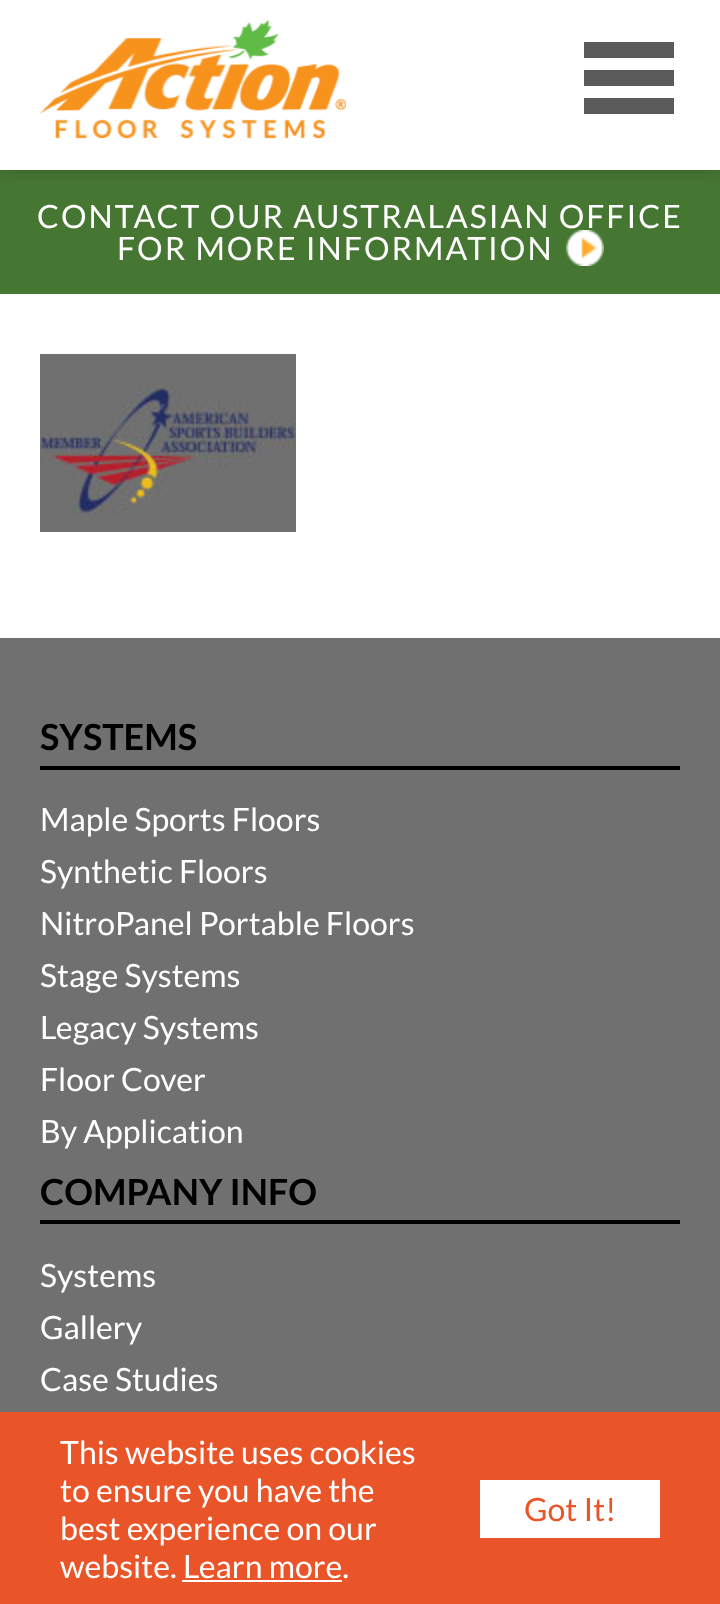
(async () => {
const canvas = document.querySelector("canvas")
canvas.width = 720
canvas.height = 1604
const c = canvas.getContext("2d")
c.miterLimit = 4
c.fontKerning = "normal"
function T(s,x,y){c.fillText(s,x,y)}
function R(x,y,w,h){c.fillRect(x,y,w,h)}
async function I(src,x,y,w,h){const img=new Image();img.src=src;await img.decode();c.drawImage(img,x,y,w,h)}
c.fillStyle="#fff"
R(0,0,720,1604)
c.fillStyle="#467732"
R(0,170,720,124)
c.save()
c.beginPath()
c.rect(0,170,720,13)
c.clip()
c.fillStyle="#00000033"
c.filter="blur(10px)"
c.beginPath()
c.rect(0,0,720,170)
c.fill()
c.filter="none"
c.restore()
await I("1.png",40,20,306,119)
c.fillStyle="#5b5b5b"
R(584,42,90,16)
R(584,70,90,16)
R(584,98,90,16)
c.letterSpacing="2px"
c.font="32px Lato"
c.fillStyle="#fff"
T("CONTACT OUR AUSTRALASIAN OFFICE",37,228)
T("FOR MORE INFORMATION",117,260)
await I("2.png",566,230,38,36)
await I("3.png",40,354,256,178)
c.fillStyle="#707070"
R(0,638,720,774)
c.fillStyle="#000"
R(40,766,640,4)
c.letterSpacing="0px"
c.font="bold 36px Lato"
T("SYSTEMS",40,750)
c.font="32px Lato"
c.fillStyle="#fff"
T("Maple Sports Floors",40,831)
T("Synthetic Floors",40,883)
T("NitroPanel Portable Floors",40,935)
T("Stage Systems",40,987)
T("Legacy Systems",40,1039)
T("Floor Cover",40,1091)
T("By Application",40,1143)
c.fillStyle="#000"
R(40,1220,640,4)
c.font="bold 36px Lato"
T("COMPANY INFO",40,1205)
c.font="32px Lato"
c.fillStyle="#fff"
T("Systems",40,1287)
T("Gallery",40,1339)
T("Case Studies",40,1391)
c.fillStyle="#ea5429"
R(0,1412,720,192)
c.fillStyle="#fff"
T("This website uses cookies",60,1464)
T("to ensure you have the",60,1502)
T("best experience on our",60,1540)
T("website. Learn more.",60,1578)
R(182,1580,160,2)
R(480,1480,180,58)
c.fillStyle="#ea5429"
T("Got It!",524,1521)
})()
